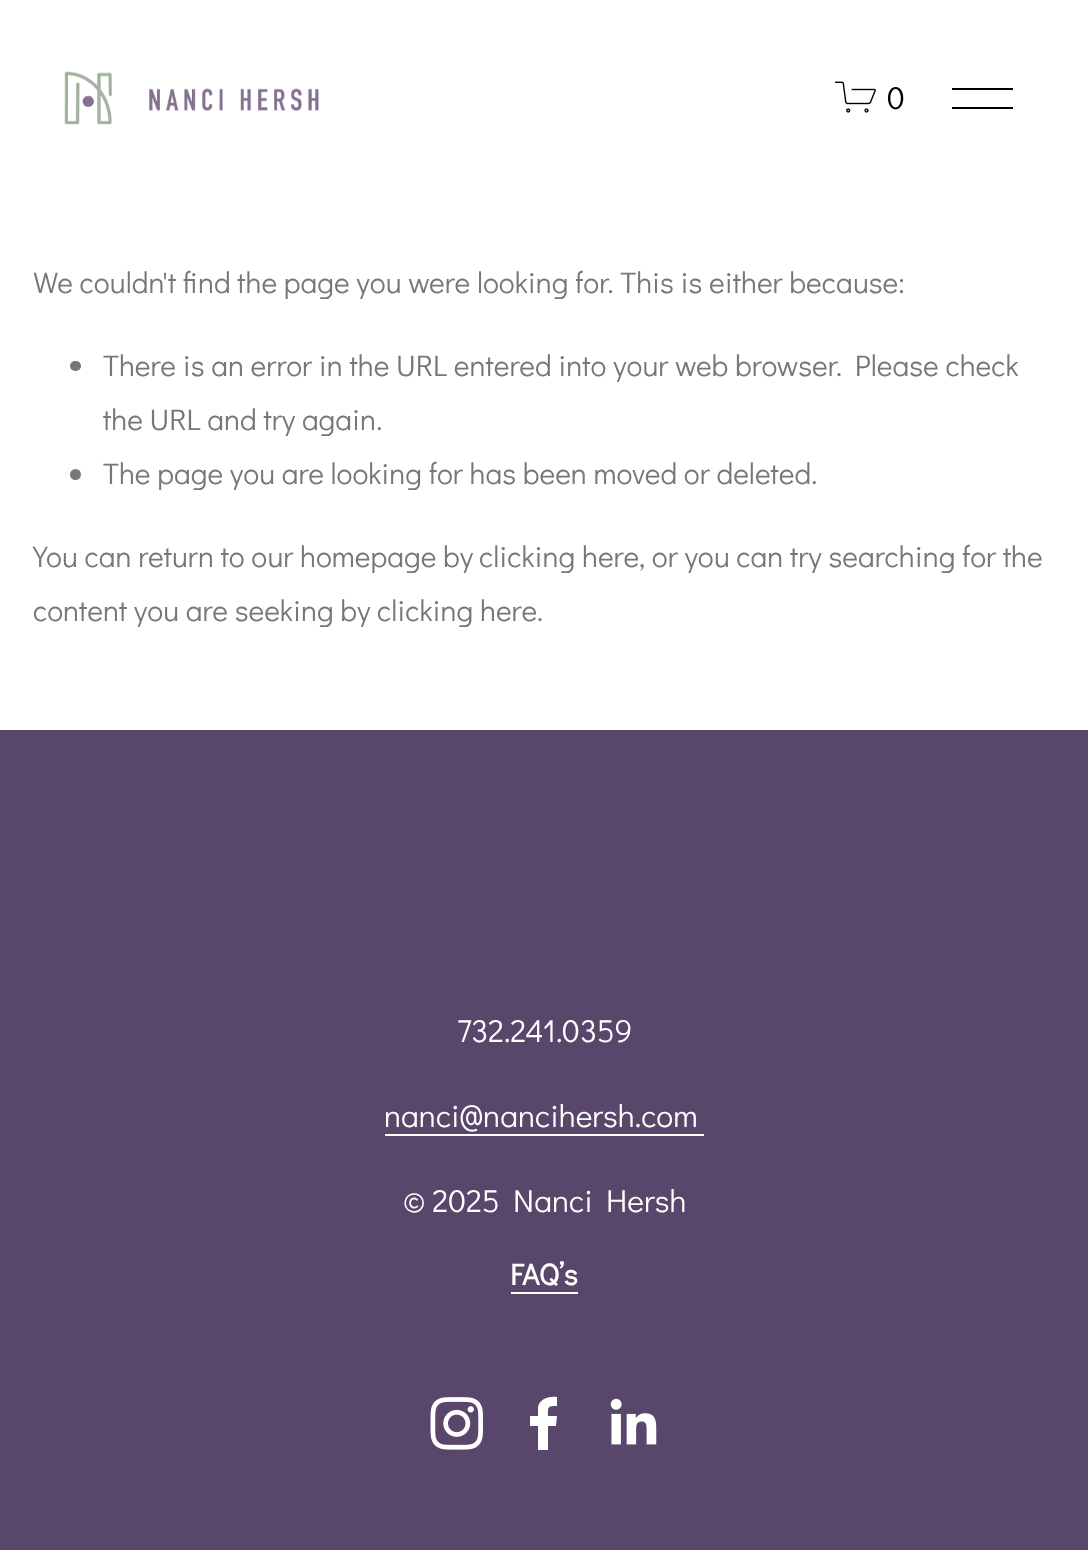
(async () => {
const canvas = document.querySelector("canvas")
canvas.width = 1088
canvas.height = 1550
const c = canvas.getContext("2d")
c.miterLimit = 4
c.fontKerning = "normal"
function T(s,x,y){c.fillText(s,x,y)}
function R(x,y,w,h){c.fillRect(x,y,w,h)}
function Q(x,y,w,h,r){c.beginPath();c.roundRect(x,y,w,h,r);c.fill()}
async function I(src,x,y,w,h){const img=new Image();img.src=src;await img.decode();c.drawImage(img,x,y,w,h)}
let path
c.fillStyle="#fff"
R(0,0,1088,1550)
await I("1.png",64,71,255,54)
await I("2.png",835,81,41,32)
c.font="31.75px Didact Gothic"
c.fillStyle="#000"
T("0",887,109)
R(952,88,61,2)
R(952,107,61,2)
c.font="29.85px Didact Gothic"
c.fillStyle="#7a7674"
T("We couldn't find the page you were looking for. This is either because:",33,293)
Q(70,361,11,10,5)
T("There is an error in the URL entered into your web browser. Please check",103,376)
T("the URL and try again.",103,430)
c.beginPath()
c.arc(75.5,474.5,5.5,0,7)
c.fill()
T("The page you are looking for has been moved or deleted.",103,484)
T("You can return to our homepage by",33,567)
T("clicking here, or you can try searching for the",479,567)
T("content you are seeking by",33,621)
T("clicking here.",377,621)
c.fillStyle="#58476a"
R(0,730,1088,820)
c.font="31.75px Didact Gothic"
c.fillStyle="#fff"
T("732.241.0359",457,1042)
T("nanci@nancihersh.com",384,1127)
R(385,1134,319,2)
T("© 2025 Nanci Hersh",403,1212)
c.font="bold 29.85px Didact Gothic"
T("FAQ’s",510,1285)
R(511,1292,67,2)
await I("3.png",430,1397,53,53)
path = new Path2D("M548 1450v-24h8l1-10h-9c0-9-1-10 9-10v-9c-7-1-17 1-19 10v9h-8v10h8v24z")
c.fill(path)
await I("4.png",610,1398,47,47)
})()
